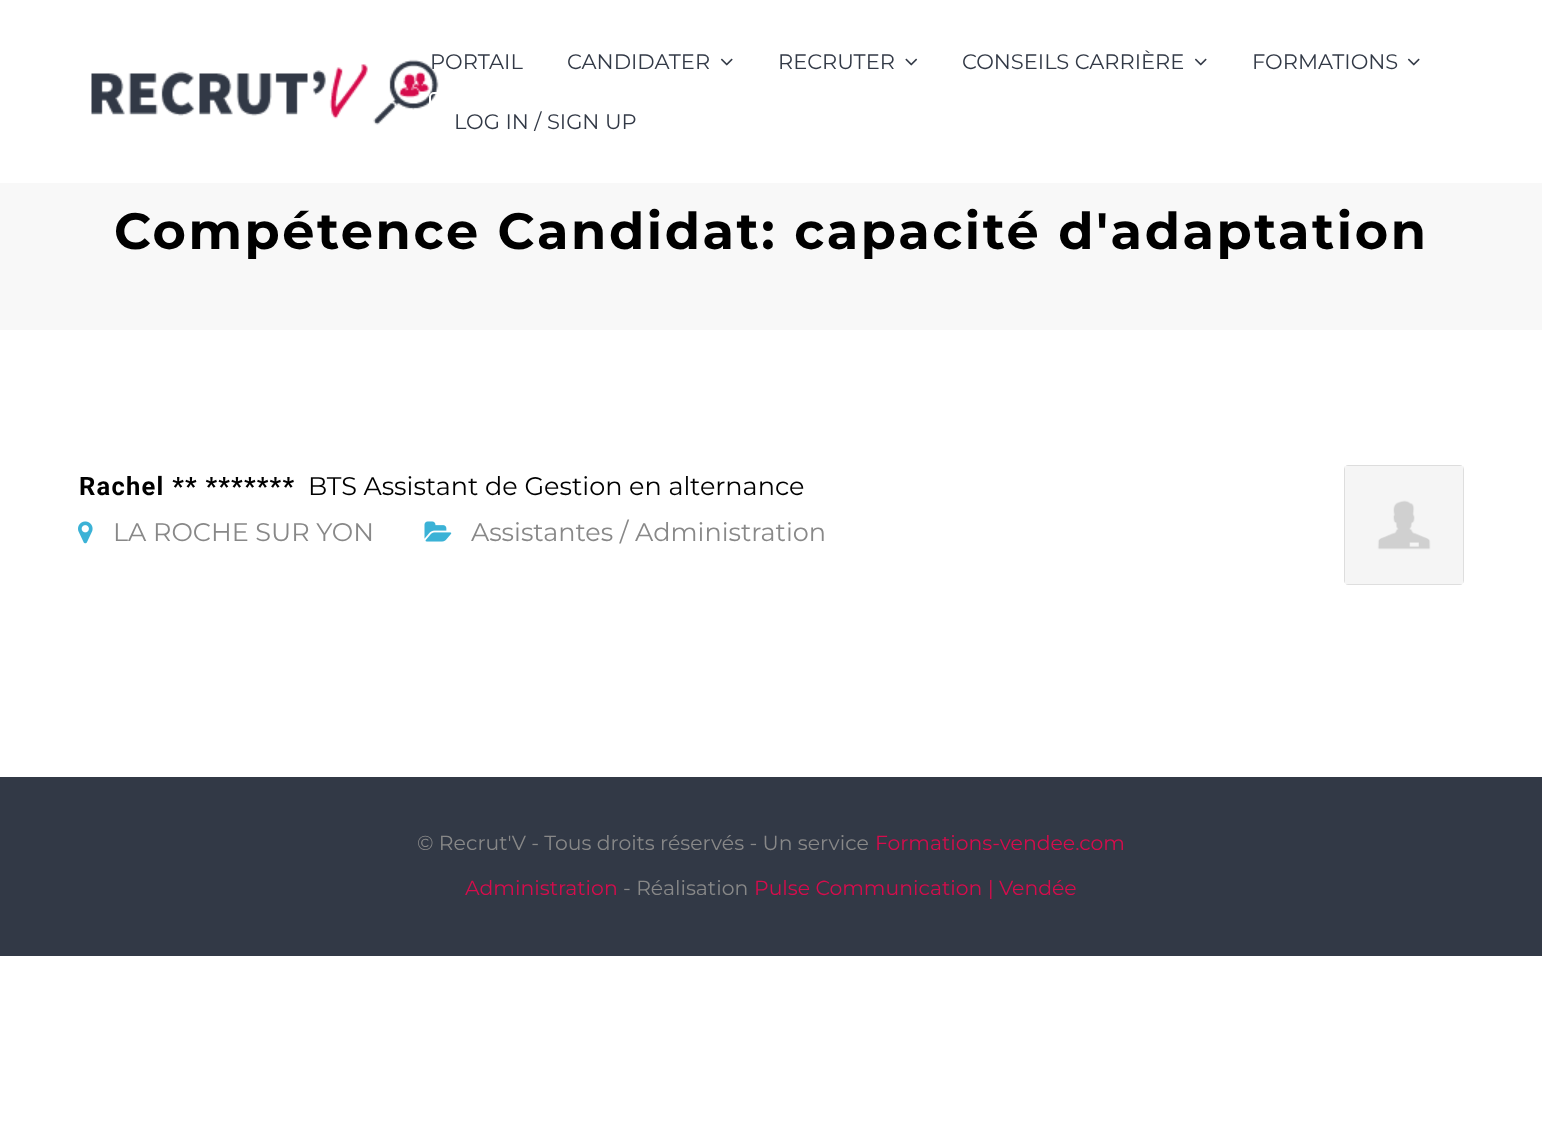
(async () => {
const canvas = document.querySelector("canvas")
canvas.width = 1542
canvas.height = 1125
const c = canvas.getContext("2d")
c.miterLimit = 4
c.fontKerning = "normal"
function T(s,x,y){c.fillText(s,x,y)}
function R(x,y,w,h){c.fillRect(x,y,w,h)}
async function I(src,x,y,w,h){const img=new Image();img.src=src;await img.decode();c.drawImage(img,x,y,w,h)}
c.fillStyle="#fff"
R(0,0,1542,1125)
await I("1.png",91,59,348,66)
c.font="21px Montserrat"
c.fillStyle="#323946"
T("PORTAIL",430,69)
T("CANDIDATER",567,69)
await I("2.png",720,58,13,8)
T("RECRUTER",778,69)
await I("3.png",905,58,13,8)
T("CONSEILS CARRIÈRE",962,69)
await I("2.png",1194,58,13,8)
T("FORMATIONS",1252,69)
await I("2.png",1407,58,13,8)
c.beginPath()
c.roundRect(430,93,229,58,4)
c.strokeStyle="#fff"
c.lineWidth=2
c.stroke()
T("LOG IN / SIGN UP",454,129)
c.fillStyle="#f8f8f8"
R(0,183,1542,147)
c.letterSpacing="2.55px"
c.font="bold 51px Montserrat"
c.fillStyle="#000"
T("Compétence Candidat: capacité d'adaptation",114,249)
c.letterSpacing="1.25px"
c.font="bold 25.5px Roboto"
T("Rachel ** *******",79,495)
c.letterSpacing="0px"
c.font="25.5px Montserrat"
T("BTS Assistant de Gestion en alternance",308,495)
await I("4.png",1344,465,120,120)
await I("5.png",78,521,15,23)
c.fillStyle="#888"
T("LA ROCHE SUR YON",113,541)
await I("6.png",424,521,28,21)
T("Assistantes / Administration",471,541)
c.fillStyle="#323946"
R(0,777,1542,179)
c.font="20.4px Montserrat"
c.fillStyle="#888"
T("© Recrut'V - Tous droits réservés - Un service",417,850)
c.fillStyle="#d60c4c"
T("Formations-vendee.com",875,850)
T("Administration",465,895)
c.fillStyle="#888"
T("- Réalisation",623,895)
c.fillStyle="#d60c4c"
T("Pulse Communication | Vendée",754,895)
})()
